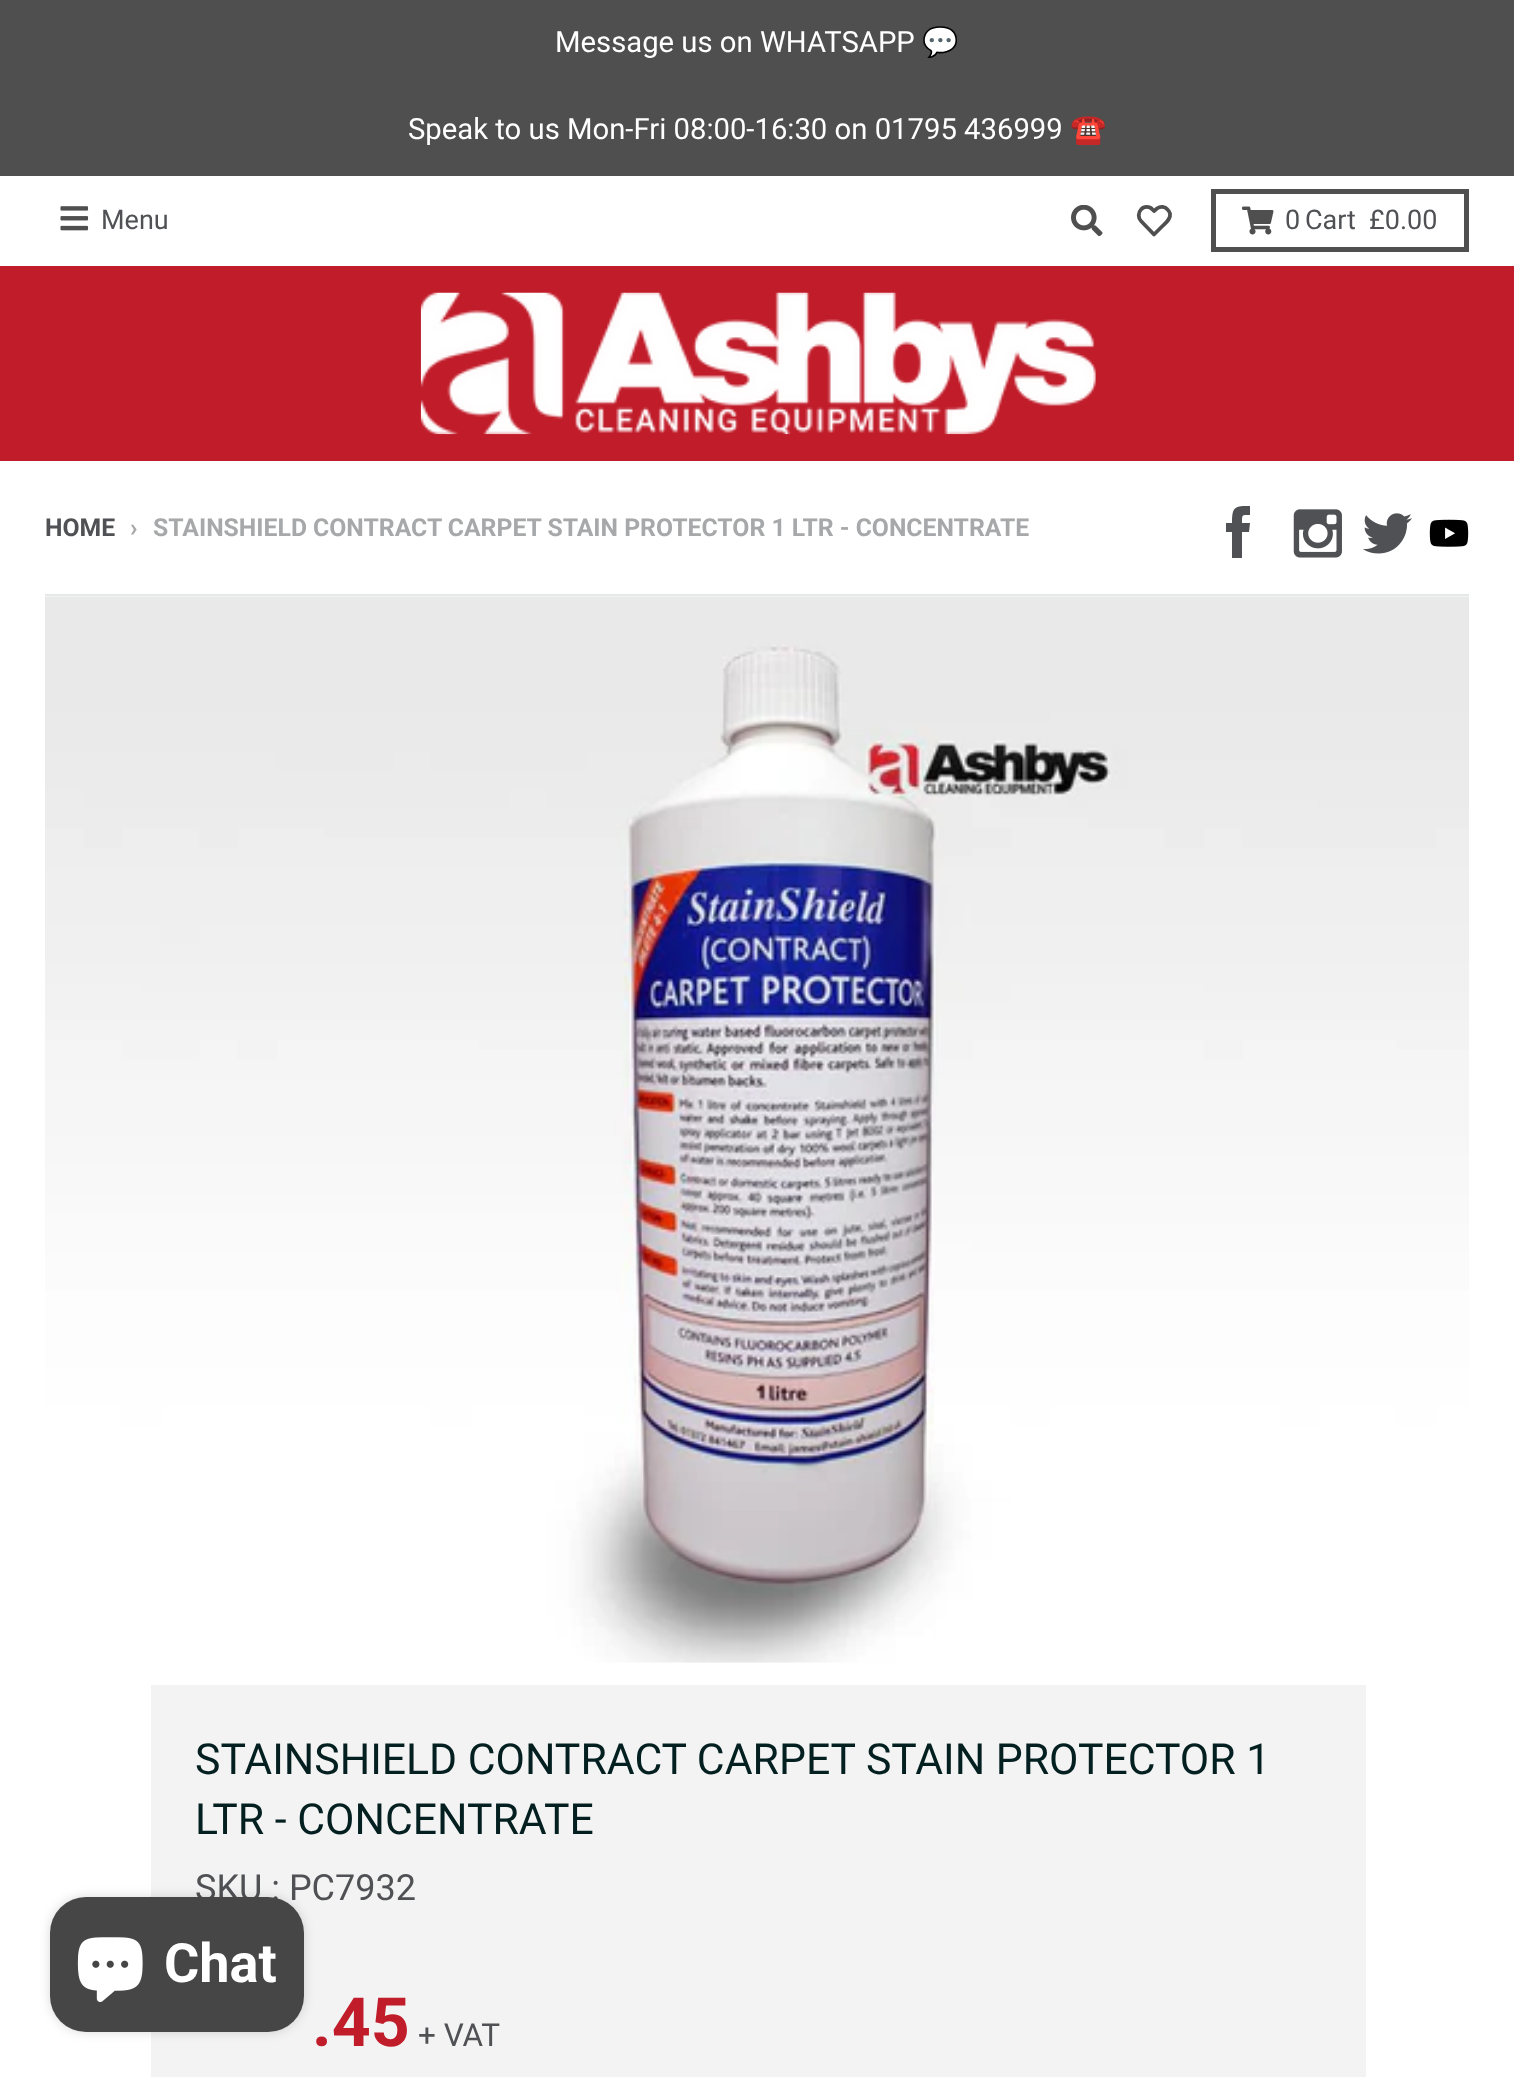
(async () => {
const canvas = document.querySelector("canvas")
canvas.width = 1514
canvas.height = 2077
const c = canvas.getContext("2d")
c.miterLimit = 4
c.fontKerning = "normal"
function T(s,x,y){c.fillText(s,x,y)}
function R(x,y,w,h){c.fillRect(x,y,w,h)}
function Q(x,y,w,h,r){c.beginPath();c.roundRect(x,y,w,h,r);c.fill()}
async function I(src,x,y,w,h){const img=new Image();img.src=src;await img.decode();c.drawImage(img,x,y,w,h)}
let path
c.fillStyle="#fff"
R(0,0,1514,2077)
c.fillStyle="#4f4f4f"
R(0,0,1514,176)
c.font="29.25px Roboto"
c.fillStyle="#fff"
T("Message us on WHATSAPP",555,52)
c.font="29.25px Noto Color Emoji"
T("💬",922,52)
c.font="29.25px Roboto"
T("Speak to us Mon-Fri 08:00-16:30 on 01795 436999",408,139)
c.font="29.25px Noto Color Emoji"
T("☎️",1070,139)
await I("1.png",60,206,29,25)
c.font="27px Roboto"
c.fillStyle="#505154"
T("Menu",101,229)
await I("2.png",1071,205,32,31)
path = new Path2D("M1167.5 209.5c-2.5-3-7-3.5-10.5-1l-3 2.5l-1.5-1.5c-3-3.5-8.5-3.5-11.5 0c-3 3-3 8.5 0 11.5l13 13.5l8-8c3.5-3.5 9-7 8-13c-.5-1.5-1.5-3-2.5-4z")
c.strokeStyle="#4f4f4f"
c.lineWidth=3.8
c.lineCap="round"
c.lineJoin="round"
c.stroke(path)
c.strokeStyle="#505050"
c.lineWidth=5
c.lineJoin="miter"
c.strokeRect(1213.5,191.5,253,58)
await I("3.png",1242,206,32,29)
T("0",1285,229)
T("Cart",1305,229)
T("£0.00",1369,229)
c.fillStyle="#c11c2a"
R(0,266,1514,195)
await I("4.png",420,292,676,143)
c.font="bold 24.75px Roboto"
c.fillStyle="#505154"
T("HOME",45,536)
c.fillStyle="#a7a8a9"
T("›",130,536)
T("STAINSHIELD CONTRACT CARPET STAIN PROTECTOR 1 LTR - CONCENTRATE",153,536)
c.fillStyle="#505154"
path = new Path2D("M1242 523h8l-1 9h-7v26h-10v-26h-6v-9h6c0-17 3-17 18-17v9c-8 0-8-1-8 8z")
c.fill(path)
await I("5.png",1293,509,49,49)
await I("6.png",1363,513,49,41)
await I("7.png",1429,519,40,28)
c.fillStyle="#e5e8e8"
R(45,594,1424,2)
await I("8.png",45,596,1424,1067)
c.fillStyle="#f3f3f3"
R(151,1685,1215,392)
c.font="42.75px Roboto"
c.fillStyle="#031f20"
T("STAINSHIELD CONTRACT CARPET STAIN PROTECTOR 1",195,1774)
T("LTR - CONCENTRATE",195,1834)
c.font="36px Roboto"
c.fillStyle="#505154"
T("SKU : PC7932",195,1900)
c.font="bold 68px Roboto"
c.fillStyle="#c11c2a"
T(".45",312,2046)
c.font="31.5px Roboto"
c.fillStyle="#505154"
T("+ VAT",418,2046)
c.fillStyle="#00000026"
c.filter="blur(5.5px)"
c.beginPath()
c.roundRect(50,1897,254,135,36)
c.fill()
c.filter="none"
c.fillStyle="#464646"
Q(50,1897,254,135,36)
await I("9.png",77,1937,66,65)
c.font="bold 54px Roboto"
c.fillStyle="#fff"
T("Chat",164,1982)
})()
